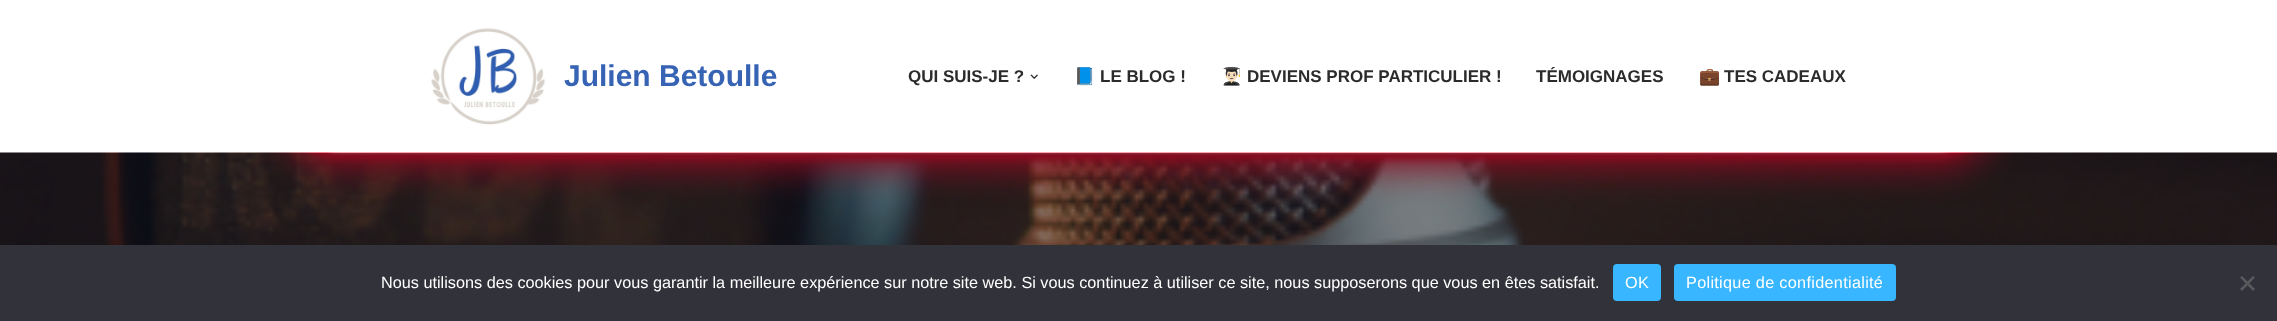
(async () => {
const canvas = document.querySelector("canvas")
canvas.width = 2277
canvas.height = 321
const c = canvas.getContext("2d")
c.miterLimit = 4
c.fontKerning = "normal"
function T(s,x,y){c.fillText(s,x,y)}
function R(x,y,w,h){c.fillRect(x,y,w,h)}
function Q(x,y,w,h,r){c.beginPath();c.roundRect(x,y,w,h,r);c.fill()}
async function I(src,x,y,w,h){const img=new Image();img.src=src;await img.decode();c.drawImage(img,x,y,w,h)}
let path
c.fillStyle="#fff"
R(0,0,2277,321)
await I("1.png",431,28,114,97)
c.font="bold 30px Liberation Sans"
c.fillStyle="#3763b4"
T("Julien Betoulle",564,86)
c.font="bold 17px Liberation Sans"
c.fillStyle="#2b2b2b"
T("QUI SUIS-JE ?",908,82)
await I("2.png",1030,74,8,5)
c.font="bold 17px Noto Color Emoji"
T("📘",1074,82)
c.font="bold 17px Liberation Sans"
T("LE BLOG !",1100,82)
c.font="bold 17px Noto Color Emoji"
T("👨🏻‍🎓",1221,82)
c.font="bold 17px Liberation Sans"
T("DEVIENS PROF PARTICULIER !",1247,82)
T("TÉMOIGNAGES",1536,82)
c.font="bold 17px Noto Color Emoji"
T("💼",1699,82)
c.font="bold 17px Liberation Sans"
T("TES CADEAUX",1724,82)
await I("3.png",0,152,2277,93)
c.fillStyle="#32323a"
R(0,245,2277,76)
c.font="16.25px Liberation Sans"
c.fillStyle="#fff"
T("Nous utilisons des cookies pour vous garantir la meilleure expérience sur notre site web. Si vous continuez à utiliser ce site, nous supposerons que vous en êtes satisfait.",381,288)
c.fillStyle="#38b6ff"
Q(1613,264,48,37,4)
c.letterSpacing="0.3px"
c.fillStyle="#fff"
T("OK",1625,288)
c.fillStyle="#38b6ff"
Q(1674,264,222,37,4)
c.fillStyle="#fff"
T("Politique de confidentialité",1686,288)
c.fillStyle="#59595d"
path = new Path2D("M2253 276l2 1.5l-13 13.5l-2-2z")
c.fill(path)
path = new Path2D("M2240 277.5l2-1.5l13 13l-2 2z")
c.fill(path)
})()
